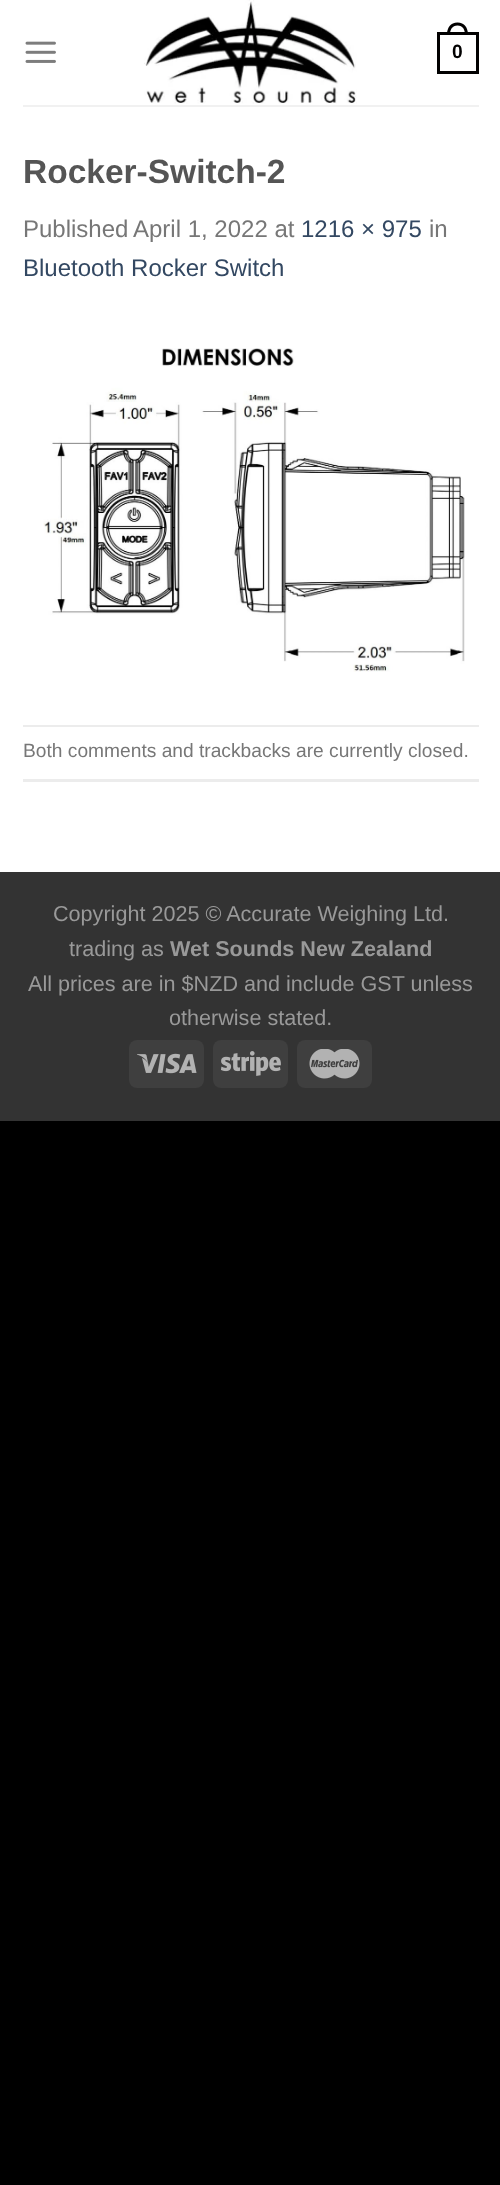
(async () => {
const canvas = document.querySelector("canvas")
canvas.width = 500
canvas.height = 2185
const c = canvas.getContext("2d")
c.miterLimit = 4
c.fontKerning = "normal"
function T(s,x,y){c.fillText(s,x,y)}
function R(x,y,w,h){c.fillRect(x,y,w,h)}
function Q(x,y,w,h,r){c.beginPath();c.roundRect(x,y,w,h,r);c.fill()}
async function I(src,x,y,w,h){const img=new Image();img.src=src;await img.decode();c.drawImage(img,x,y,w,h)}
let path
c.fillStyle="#000"
R(0,0,500,2185)
c.fillStyle="#fff"
R(0,0,500,872)
await I("1.png",25,41,31,22)
await I("2.png",144,0,213,104)
c.strokeStyle="#020101"
c.lineWidth=3
c.strokeRect(438.5,33.5,39,39)
c.fillStyle="#020101"
path = new Path2D("M457.5 22.5c7 0 10.5 5.5 10.5 12h-21c0-6.5 3.5-12 10.5-12zm0 3c5.5 0 7.5 4.5 7.5 9h-15c0-4.5 2-9 7.5-9z")
c.fill(path,"evenodd")
c.font="bold 19.2px Liberation Sans"
T("0",452,58)
c.fillStyle="#f1f1f1"
R(23,105,456,2)
c.font="bold 33.5px Liberation Sans"
c.fillStyle="#555"
T("Rocker-Switch-2",23,183)
c.font="24px Liberation Sans"
c.fillStyle="#777"
T("Published",23,237)
T("April 1, 2022 at",133,237)
c.fillStyle="#334862"
T("1216 × 975",301,237)
c.fillStyle="#777"
T("in",429,237)
c.fillStyle="#334862"
T("Bluetooth Rocker Switch",23,276)
await I("3.png",43,348,422,324)
c.fillStyle="#ececec"
R(23,725,456,2)
R(23,779,456,3)
c.font="19.2px Liberation Sans"
c.fillStyle="#777"
T("Both comments and trackbacks are currently closed.",23,757)
c.fillStyle="#333"
R(0,872,500,249)
c.font="21.6px Liberation Sans"
c.fillStyle="#999"
T("Copyright 2025 © Accurate Weighing Ltd.",53,921)
T("trading as",69,956)
c.font="bold 21.6px Liberation Sans"
T("Wet Sounds New Zealand",170,956)
c.font="21.6px Liberation Sans"
T("All prices are in $NZD and include GST unless",28,991)
T("otherwise stated.",169,1025)
c.fillStyle="#3f3f3f"
Q(129,1040,75,48,8)
await I("4.png",137,1053,60,21)
Q(213,1040,75,48,8)
await I("5.png",221,1051,60,25)
Q(297,1040,75,48,8)
await I("6.png",309,1049,51,30)
})()
